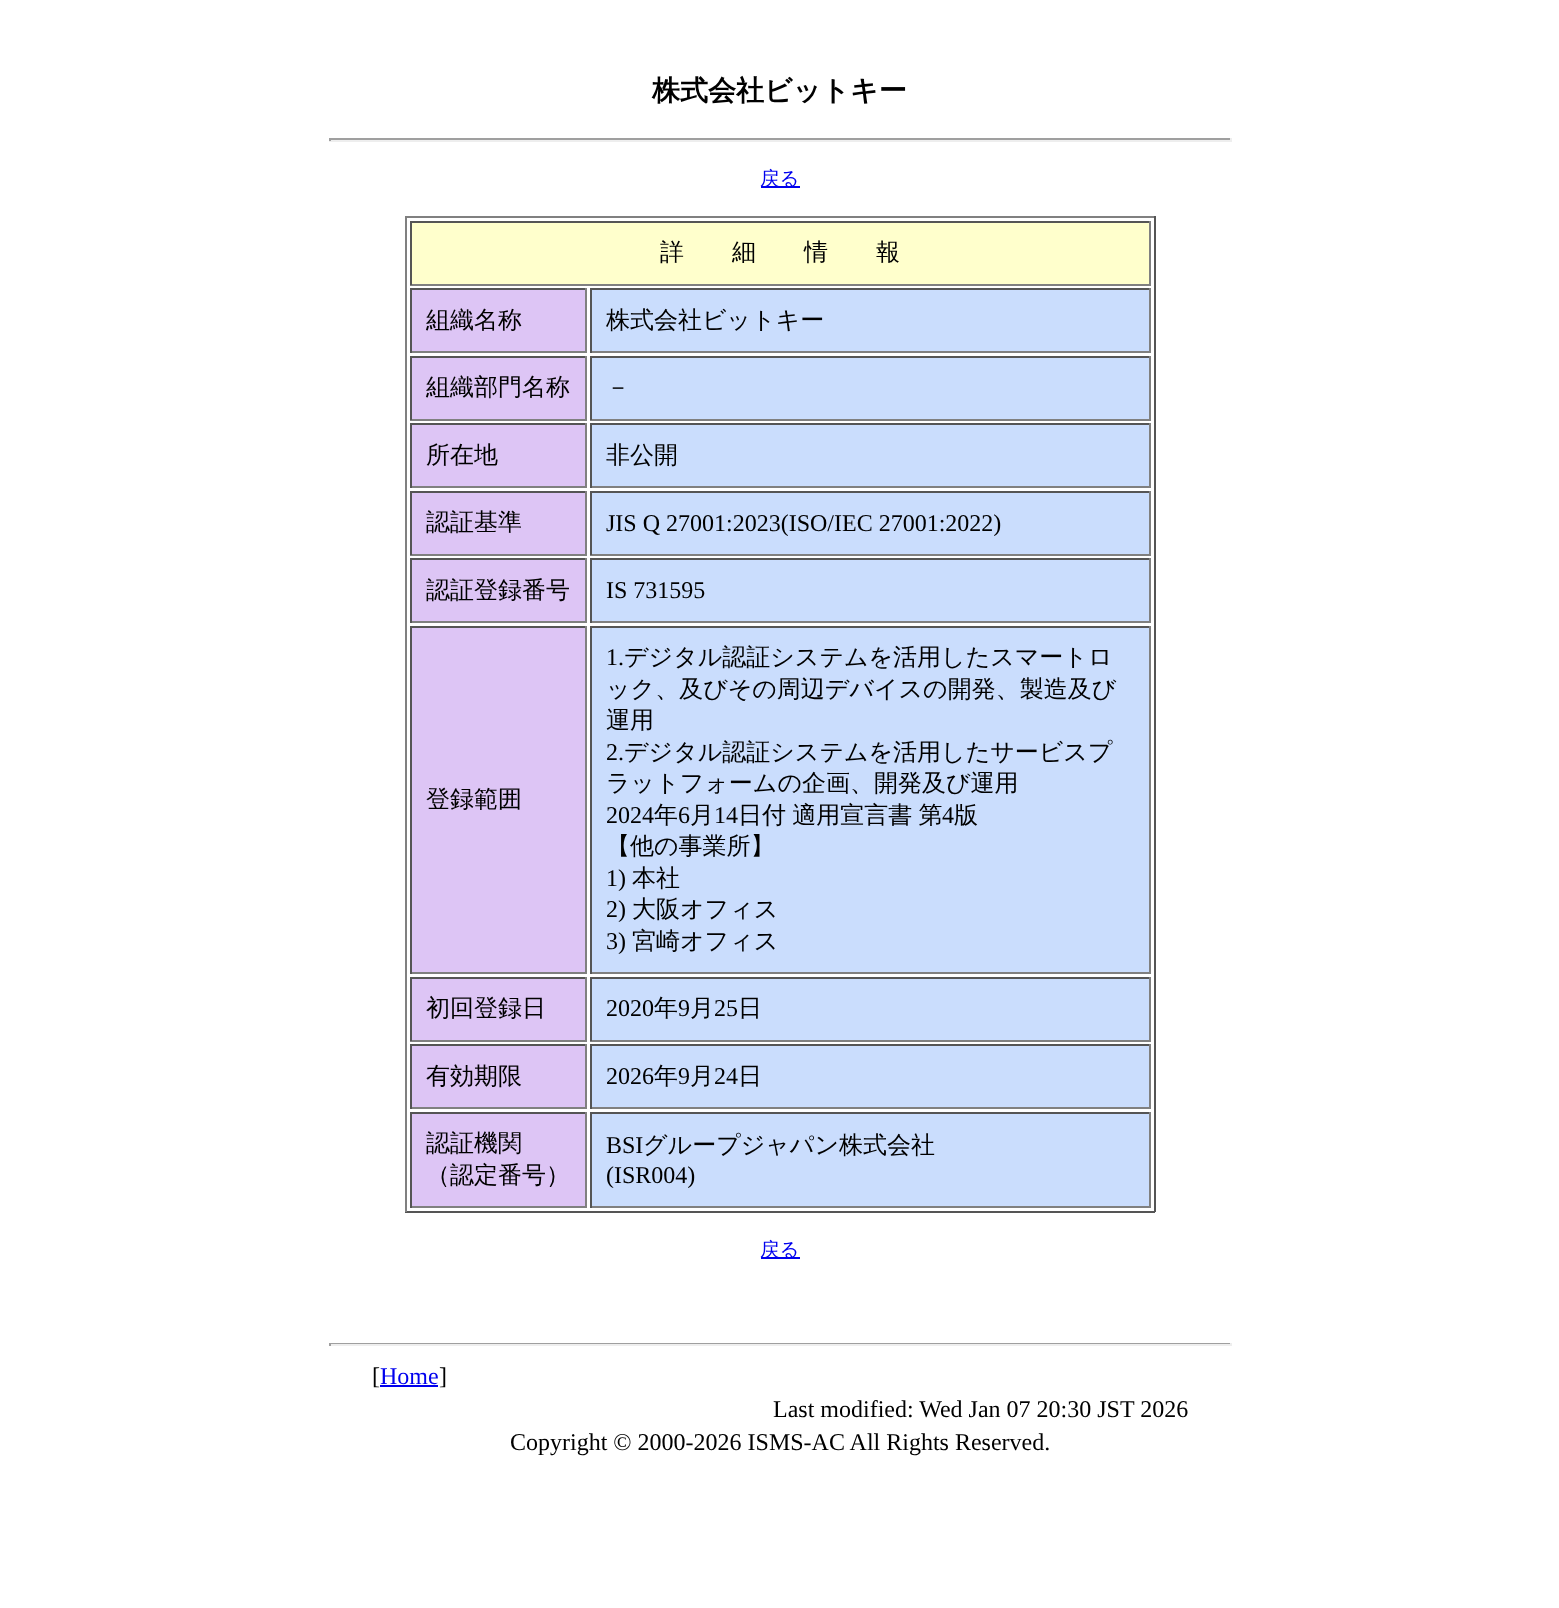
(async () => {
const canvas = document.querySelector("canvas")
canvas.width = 1559
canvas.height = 1608
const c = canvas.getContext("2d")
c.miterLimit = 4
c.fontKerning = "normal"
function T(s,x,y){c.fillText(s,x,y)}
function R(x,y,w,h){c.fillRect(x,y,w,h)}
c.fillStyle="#fff"
R(0,0,1559,1608)
c.font="bold 28px WenQuanYi Zen Hei"
c.fillStyle="#000"
T("株式会社ビットキー",652,100)
c.fillStyle="#9f9f9f"
R(329,138,903,2)
c.fillStyle="#eee"
R(1230,138,2,3)
R(329,140,903,2)
c.fillStyle="#9f9f9f"
R(329,138,2,3)
c.fillStyle="#00e"
R(761,186,39,2)
c.font="500 19.5px WenQuanYi Zen Hei"
T("戻る",760,185)
c.fillStyle="#808080"
R(405,216,750,2)
c.fillStyle="#555"
R(1154,216,2,996)
R(405,1211,750,2)
c.fillStyle="#808080"
R(405,216,2,996)
c.fillStyle="#ffc"
R(412,223,737,61)
c.fillStyle="#555"
R(410,221,741,2)
c.fillStyle="#808080"
R(1149,221,2,64)
R(410,284,741,2)
c.fillStyle="#555"
R(410,221,2,64)
c.font="500 24px WenQuanYi Zen Hei"
c.fillStyle="#000"
T("詳　　細　　情　　報",660,260)
c.fillStyle="#ddc5f5"
R(412,290,173,61)
c.fillStyle="#555"
R(410,288,177,2)
c.fillStyle="#808080"
R(585,288,2,65)
R(410,351,177,2)
c.fillStyle="#555"
R(410,288,2,65)
c.fillStyle="#000"
T("組織名称",426,328)
c.fillStyle="#caddfd"
R(592,290,557,61)
c.fillStyle="#555"
R(590,288,561,2)
c.fillStyle="#808080"
R(1149,288,2,65)
R(590,351,561,2)
c.fillStyle="#555"
R(590,288,2,65)
c.fillStyle="#000"
T("株式会社ビットキー",606,328)
c.fillStyle="#ddc5f5"
R(412,358,173,61)
c.fillStyle="#555"
R(410,356,177,2)
c.fillStyle="#808080"
R(585,356,2,64)
R(410,419,177,2)
c.fillStyle="#555"
R(410,356,2,64)
c.fillStyle="#000"
T("組織部門名称",426,395)
c.fillStyle="#caddfd"
R(592,358,557,61)
c.fillStyle="#555"
R(590,356,561,2)
c.fillStyle="#808080"
R(1149,356,2,64)
R(590,419,561,2)
c.fillStyle="#555"
R(590,356,2,64)
c.fillStyle="#000"
T("－",606,395)
c.fillStyle="#ddc5f5"
R(412,425,173,61)
c.fillStyle="#555"
R(410,423,177,2)
c.fillStyle="#808080"
R(585,423,2,65)
R(410,486,177,2)
c.fillStyle="#555"
R(410,423,2,65)
c.fillStyle="#000"
T("所在地",426,463)
c.fillStyle="#caddfd"
R(592,425,557,61)
c.fillStyle="#555"
R(590,423,561,2)
c.fillStyle="#808080"
R(1149,423,2,65)
R(590,486,561,2)
c.fillStyle="#555"
R(590,423,2,65)
c.fillStyle="#000"
T("非公開",606,463)
c.fillStyle="#ddc5f5"
R(412,493,173,61)
c.fillStyle="#555"
R(410,491,177,2)
c.fillStyle="#808080"
R(585,491,2,64)
R(410,554,177,2)
c.fillStyle="#555"
R(410,491,2,64)
c.fillStyle="#000"
T("認証基準",426,530)
c.fillStyle="#caddfd"
R(592,493,557,61)
c.fillStyle="#555"
R(590,491,561,2)
c.fillStyle="#808080"
R(1149,491,2,64)
R(590,554,561,2)
c.fillStyle="#555"
R(590,491,2,64)
c.font="24px Liberation Serif"
c.fillStyle="#000"
T("JIS Q 27001:2023(ISO/IEC 27001:2022)",606,531)
c.fillStyle="#ddc5f5"
R(412,560,173,61)
c.fillStyle="#555"
R(410,558,177,2)
c.fillStyle="#808080"
R(585,558,2,65)
R(410,621,177,2)
c.fillStyle="#555"
R(410,558,2,65)
c.font="500 24px WenQuanYi Zen Hei"
c.fillStyle="#000"
T("認証登録番号",426,598)
c.fillStyle="#caddfd"
R(592,560,557,61)
c.fillStyle="#555"
R(590,558,561,2)
c.fillStyle="#808080"
R(1149,558,2,65)
R(590,621,561,2)
c.fillStyle="#555"
R(590,558,2,65)
c.font="24px Liberation Serif"
c.fillStyle="#000"
T("IS 731595",606,598)
c.fillStyle="#ddc5f5"
R(412,628,173,344)
c.fillStyle="#555"
R(410,626,177,2)
c.fillStyle="#808080"
R(585,626,2,348)
R(410,972,177,2)
c.fillStyle="#555"
R(410,626,2,348)
c.font="500 24px WenQuanYi Zen Hei"
c.fillStyle="#000"
T("登録範囲",426,807)
c.fillStyle="#caddfd"
R(592,628,557,344)
c.fillStyle="#555"
R(590,626,561,2)
c.fillStyle="#808080"
R(1149,626,2,348)
R(590,972,561,2)
c.fillStyle="#555"
R(590,626,2,348)
c.font="24px Liberation Serif"
c.fillStyle="#000"
T("1.",606,665)
c.font="500 24px WenQuanYi Zen Hei"
T("デジタル認証システムを活用したスマートロ",624,665)
T("ック、及びその周辺デバイスの開発、製造及び",606,697)
T("運用",606,728)
c.font="24px Liberation Serif"
T("2.",606,760)
c.font="500 24px WenQuanYi Zen Hei"
T("デジタル認証システムを活用したサービスプ",624,760)
T("ラットフォームの企画、開発及び運用",606,791)
c.font="24px Liberation Serif"
T("2024",606,823)
c.font="500 24px WenQuanYi Zen Hei"
T("年",654,823)
c.font="24px Liberation Serif"
T("6",678,823)
c.font="500 24px WenQuanYi Zen Hei"
T("月",690,823)
c.font="24px Liberation Serif"
T("14",714,823)
c.wordSpacing="-1px"
c.font="500 24px WenQuanYi Zen Hei"
T("日付 適用宣言書 第",738,823)
c.wordSpacing="0px"
c.font="24px Liberation Serif"
T("4",942,823)
c.font="500 24px WenQuanYi Zen Hei"
T("版",954,823)
T("【他の事業所】",606,854)
c.font="24px Liberation Serif"
T("1)",606,886)
c.font="500 24px WenQuanYi Zen Hei"
T("本社",632,886)
c.font="24px Liberation Serif"
T("2)",606,917)
c.font="500 24px WenQuanYi Zen Hei"
T("大阪オフィス",632,917)
c.font="24px Liberation Serif"
T("3)",606,949)
c.font="500 24px WenQuanYi Zen Hei"
T("宮崎オフィス",632,949)
c.fillStyle="#ddc5f5"
R(412,979,173,61)
c.fillStyle="#555"
R(410,977,177,2)
c.fillStyle="#808080"
R(585,977,2,64)
R(410,1040,177,2)
c.fillStyle="#555"
R(410,977,2,64)
c.fillStyle="#000"
T("初回登録日",426,1016)
c.fillStyle="#caddfd"
R(592,979,557,61)
c.fillStyle="#555"
R(590,977,561,2)
c.fillStyle="#808080"
R(1149,977,2,64)
R(590,1040,561,2)
c.fillStyle="#555"
R(590,977,2,64)
c.font="24px Liberation Serif"
c.fillStyle="#000"
T("2020",606,1016)
c.font="500 24px WenQuanYi Zen Hei"
T("年",654,1016)
c.font="24px Liberation Serif"
T("9",678,1016)
c.font="500 24px WenQuanYi Zen Hei"
T("月",690,1016)
c.font="24px Liberation Serif"
T("25",714,1016)
c.font="500 24px WenQuanYi Zen Hei"
T("日",738,1016)
c.fillStyle="#ddc5f5"
R(412,1046,173,61)
c.fillStyle="#555"
R(410,1044,177,2)
c.fillStyle="#808080"
R(585,1044,2,65)
R(410,1107,177,2)
c.fillStyle="#555"
R(410,1044,2,65)
c.fillStyle="#000"
T("有効期限",426,1084)
c.fillStyle="#caddfd"
R(592,1046,557,61)
c.fillStyle="#555"
R(590,1044,561,2)
c.fillStyle="#808080"
R(1149,1044,2,65)
R(590,1107,561,2)
c.fillStyle="#555"
R(590,1044,2,65)
c.font="24px Liberation Serif"
c.fillStyle="#000"
T("2026",606,1084)
c.font="500 24px WenQuanYi Zen Hei"
T("年",654,1084)
c.font="24px Liberation Serif"
T("9",678,1084)
c.font="500 24px WenQuanYi Zen Hei"
T("月",690,1084)
c.font="24px Liberation Serif"
T("24",714,1084)
c.font="500 24px WenQuanYi Zen Hei"
T("日",738,1084)
c.fillStyle="#ddc5f5"
R(412,1114,173,92)
c.fillStyle="#555"
R(410,1112,177,2)
c.fillStyle="#808080"
R(585,1112,2,96)
R(410,1206,177,2)
c.fillStyle="#555"
R(410,1112,2,96)
c.fillStyle="#000"
T("認証機関",426,1151)
T("（認定番号）",426,1183)
c.fillStyle="#caddfd"
R(592,1114,557,92)
c.fillStyle="#555"
R(590,1112,561,2)
c.fillStyle="#808080"
R(1149,1112,2,96)
R(590,1206,561,2)
c.fillStyle="#555"
R(590,1112,2,96)
c.font="24px Liberation Serif"
c.fillStyle="#000"
T("BSI",606,1153)
c.font="500 24px WenQuanYi Zen Hei"
T("グループジャパン株式会社",643,1153)
c.font="24px Liberation Serif"
T("(ISR004)",606,1183)
c.fillStyle="#00e"
R(761,1257,39,2)
c.font="500 19.5px WenQuanYi Zen Hei"
T("戻る",760,1256)
c.fillStyle="#9f9f9f"
R(329,1343,903,1)
c.fillStyle="#eee"
R(1230,1343,2,3)
R(329,1344,903,2)
c.fillStyle="#9f9f9f"
R(329,1343,2,3)
c.font="24px Liberation Serif"
c.fillStyle="#000"
T("[",372,1384)
c.fillStyle="#00e"
T("Home",380,1384)
R(380,1385,58,2)
c.fillStyle="#000"
T("]",439,1384)
T("Last modified: Wed Jan 07 20:30 JST 2026",773,1417)
T("Copyright © 2000-2026 ISMS-AC All Rights Reserved.",510,1450)
})()
